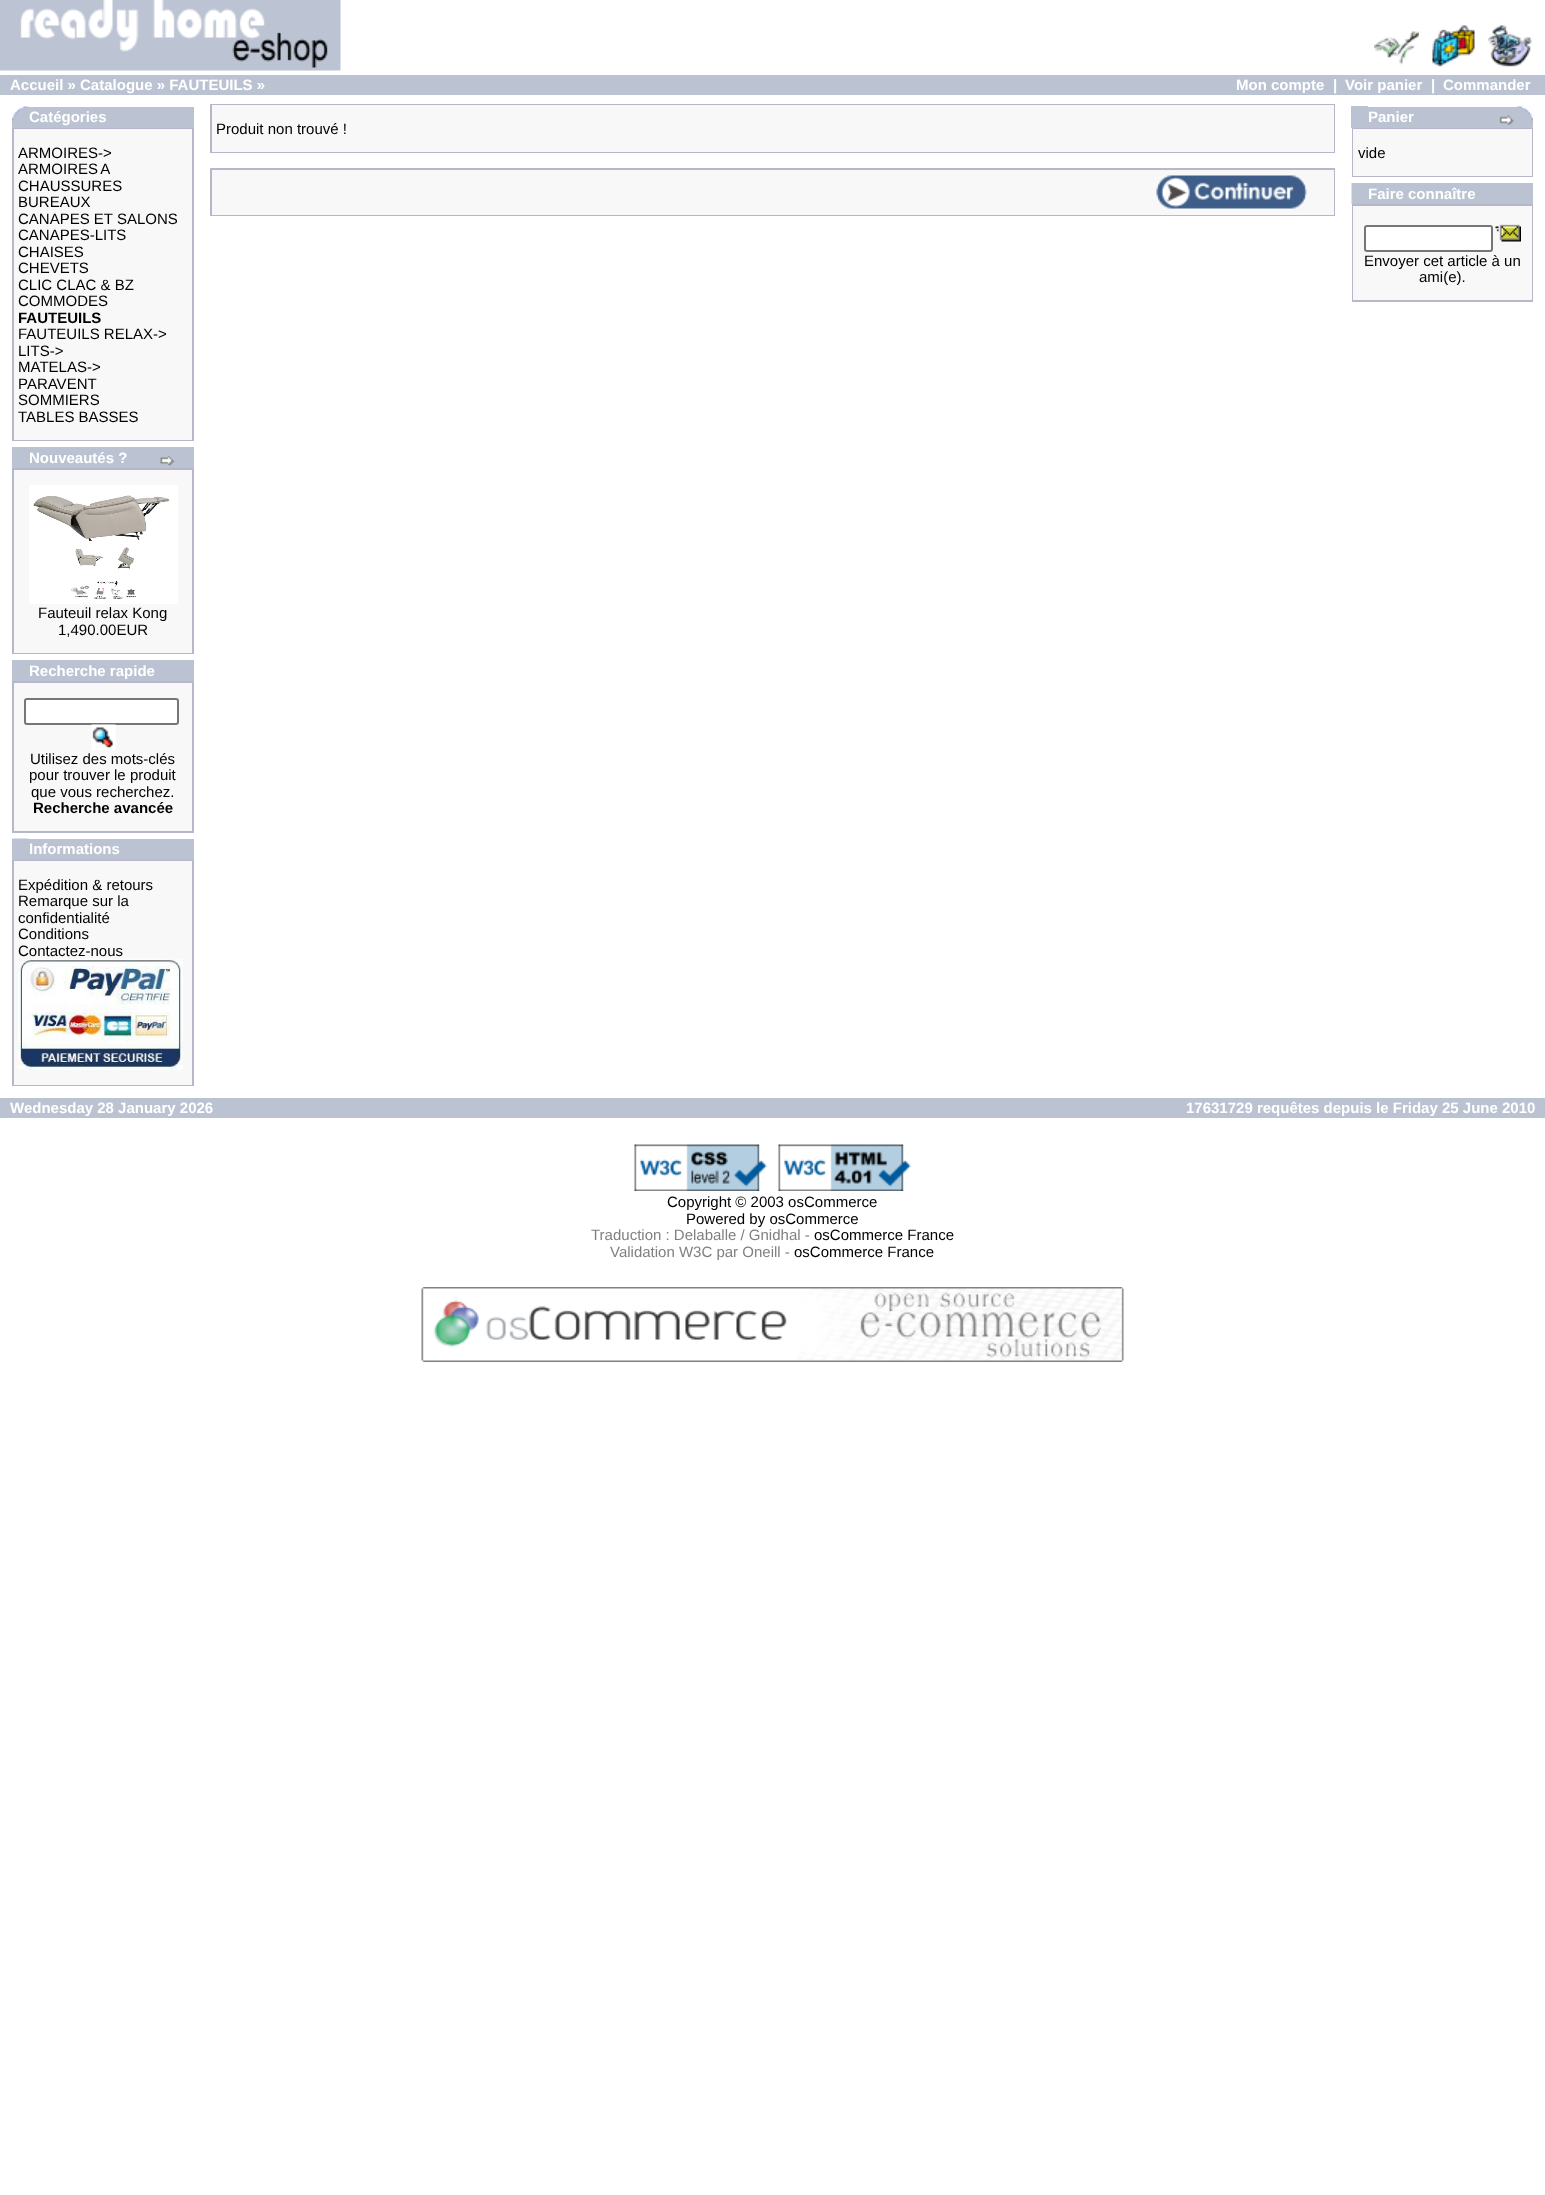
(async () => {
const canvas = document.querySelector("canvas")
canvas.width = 1545
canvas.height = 2195
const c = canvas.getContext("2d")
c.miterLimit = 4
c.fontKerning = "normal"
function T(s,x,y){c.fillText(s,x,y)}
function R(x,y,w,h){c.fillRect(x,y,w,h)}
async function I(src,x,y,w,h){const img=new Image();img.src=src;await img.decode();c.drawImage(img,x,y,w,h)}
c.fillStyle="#fff"
R(0,0,1545,2195)
await I("1.png",0,0,341,71)
await I("2.png",1374,31,45,34)
await I("3.png",1432,25,43,42)
await I("4.png",1488,25,44,42)
c.fillStyle="#bbc3d3"
R(0,75,1545,20)
c.font="bold 15px Liberation Sans"
c.fillStyle="#fff"
T("Accueil » Catalogue » FAUTEUILS »",10,90)
T("Mon compte",1236,90)
T("|",1333,90)
T("Voir panier",1345,90)
T("|",1431,90)
T("Commander",1443,90)
c.fillStyle="#bbc3d3"
R(12,107,182,21)
await I("5.png",12,106,17,16)
c.fillStyle="#fff"
T("Catégories",29,122)
c.fillStyle="#b6b7cb"
R(12,128,182,313)
c.fillStyle="#f8f8f9"
R(14,129,178,311)
c.font="15px Liberation Sans"
c.fillStyle="#000"
T("ARMOIRES->",18,158)
c.wordSpacing="-1px"
T("ARMOIRES A",18,174)
c.wordSpacing="0px"
T("CHAUSSURES",18,191)
T("BUREAUX",18,207)
T("CANAPES ET SALONS",18,224)
T("CANAPES-LITS",18,240)
T("CHAISES",18,257)
T("CHEVETS",18,273)
T("CLIC CLAC & BZ",18,290)
T("COMMODES",18,306)
c.font="bold 15px Liberation Sans"
T("FAUTEUILS",18,323)
c.font="15px Liberation Sans"
T("FAUTEUILS RELAX->",18,339)
T("LITS->",18,356)
T("MATELAS->",18,372)
T("PARAVENT",18,389)
T("SOMMIERS",18,405)
T("TABLES BASSES",18,422)
c.fillStyle="#bbc3d3"
R(12,447,182,21)
c.font="bold 15px Liberation Sans"
c.fillStyle="#fff"
T("Nouveautés ?",29,463)
await I("6.png",160,455,15,11)
c.fillStyle="#b6b7cb"
R(12,468,182,186)
c.fillStyle="#f8f8f9"
R(14,470,178,183)
await I("7.png",29,485,149,119)
c.font="15px Liberation Sans"
c.fillStyle="#000"
T("Fauteuil relax Kong",38,618)
T("1,490.00EUR",58,635)
c.fillStyle="#bbc3d3"
R(12,660,182,21)
c.font="bold 15px Liberation Sans"
c.fillStyle="#fff"
T("Recherche rapide",29,676)
c.fillStyle="#b6b7cb"
R(12,681,182,152)
c.fillStyle="#f8f8f9"
R(14,683,178,148)
c.fillStyle="#fff"
c.beginPath()
c.roundRect(25,699,153,25,2)
c.fill()
c.strokeStyle="#767676"
c.lineWidth=2
c.stroke()
await I("8.png",91,724,25,26)
c.font="15px Liberation Sans"
c.fillStyle="#000"
T("Utilisez des mots-clés",30,764)
T("pour trouver le produit",29,780)
T("que vous recherchez.",31,797)
c.font="bold 15px Liberation Sans"
T("Recherche avancée",33,813)
c.fillStyle="#bbc3d3"
R(12,839,182,21)
await I("9.png",12,838,17,1)
c.fillStyle="#fff"
T("Informations",29,854)
c.fillStyle="#b6b7cb"
R(12,860,182,226)
c.fillStyle="#f8f8f9"
R(14,861,178,224)
c.font="15px Liberation Sans"
c.fillStyle="#000"
T("Expédition & retours",18,890)
T("Remarque sur la",18,906)
T("confidentialité",18,923)
T("Conditions",18,939)
T("Contactez-nous",18,956)
await I("10.png",18,958,165,112)
c.fillStyle="#b6b7cb"
R(210,104,1125,49)
c.fillStyle="#f8f8f9"
R(212,105,1122,47)
c.fillStyle="#000"
T("Produit non trouvé !",216,134)
c.fillStyle="#b6b7cb"
R(210,168,1125,48)
c.fillStyle="#f8f8f9"
R(212,170,1122,45)
await I("11.png",1156,175,151,34)
c.fillStyle="#bbc3d3"
R(1351,106,17,22)
R(1368,107,165,21)
c.font="bold 15px Liberation Sans"
c.fillStyle="#fff"
T("Panier",1368,122)
await I("12.png",1499,115,15,10)
await I("13.png",1516,106,17,16)
c.fillStyle="#b6b7cb"
R(1352,128,181,49)
c.fillStyle="#f8f8f9"
R(1353,129,179,47)
c.font="15px Liberation Sans"
c.fillStyle="#000"
T("vide",1358,158)
c.fillStyle="#bbc3d3"
R(1352,183,181,21)
c.fillStyle="#dde1e9"
R(1351,183,1,21)
c.font="bold 15px Liberation Sans"
c.fillStyle="#fff"
T("Faire connaître",1368,199)
c.fillStyle="#b6b7cb"
R(1352,204,181,98)
c.fillStyle="#f8f8f9"
R(1353,206,179,94)
c.fillStyle="#fff"
c.beginPath()
c.roundRect(1365,226,127,25,2)
c.fill()
c.stroke()
await I("14.png",1495,224,26,18)
c.font="15px Liberation Sans"
c.fillStyle="#000"
T("Envoyer cet article à un",1364,266)
T("ami(e).",1419,282)
c.fillStyle="#bbc3d3"
R(0,1098,1545,20)
c.font="bold 15px Liberation Sans"
c.fillStyle="#fff"
T("Wednesday 28 January 2026",10,1113)
T("17631729 requêtes depuis le Friday 25 June 2010",1186,1113)
await I("15.png",634,1144,133,47)
await I("16.png",778,1144,133,47)
c.font="15px Liberation Sans"
c.fillStyle="#000"
T("Copyright © 2003 osCommerce",667,1207)
T("Powered by osCommerce",686,1224)
c.fillStyle="#808080"
T("Traduction : Delaballe / Gnidhal -",591,1240)
c.fillStyle="#000"
T("osCommerce France",814,1240)
c.fillStyle="#808080"
T("Validation W3C par Oneill -",610,1257)
c.fillStyle="#000"
T("osCommerce France",794,1257)
await I("17.png",421,1287,703,75)
})()
